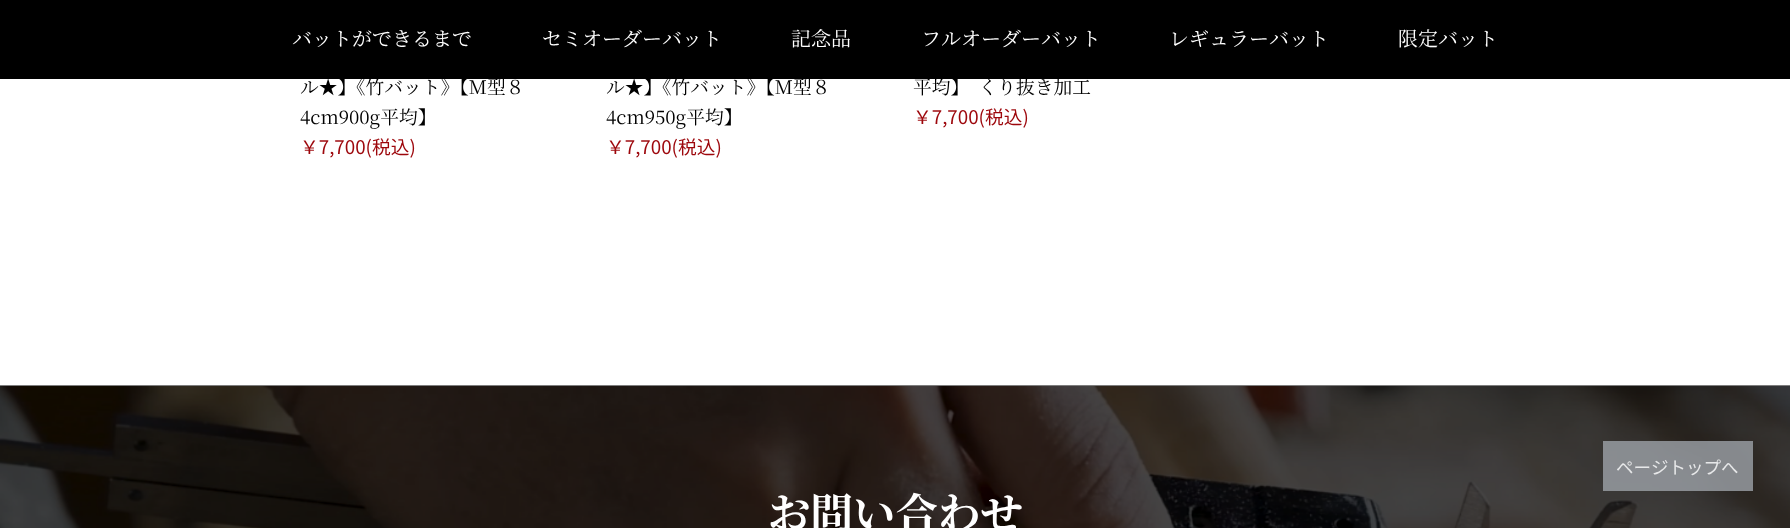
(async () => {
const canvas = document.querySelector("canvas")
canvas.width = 1790
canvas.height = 528
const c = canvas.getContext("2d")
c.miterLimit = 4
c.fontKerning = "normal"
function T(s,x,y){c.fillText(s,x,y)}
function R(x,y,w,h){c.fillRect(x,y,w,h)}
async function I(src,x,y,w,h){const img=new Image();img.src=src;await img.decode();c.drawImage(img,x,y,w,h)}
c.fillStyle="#fff"
R(0,0,1790,528)
c.fillStyle="#000"
R(0,0,1790,79)
c.font="20px Noto Serif JP"
c.fillStyle="#fff"
T("バットができるまで",292,46)
T("セミオーダーバット",542,46)
T("記念品",791,46)
T("フルオーダーバット",921,46)
T("レギュラーバット",1169,46)
T("限定バット",1398,46)
c.font="18.75px Noto Serif JP"
c.fillStyle="#000"
T("ル★】《竹バット》【M型８",300,94)
T("4cm900g平均】",300,124)
c.font="18.75px Noto Sans JP"
c.fillStyle="#9d070c"
T("￥7,700(税込)",300,154)
c.font="18.75px Noto Serif JP"
c.fillStyle="#000"
T("ル★】《竹バット》【M型８",606,94)
T("4cm950g平均】",606,124)
c.font="18.75px Noto Sans JP"
c.fillStyle="#9d070c"
T("￥7,700(税込)",606,154)
c.font="18.75px Noto Serif JP"
c.fillStyle="#000"
T("平均】　くり抜き加工",913,94)
c.font="18.75px Noto Sans JP"
c.fillStyle="#9d070c"
T("￥7,700(税込)",913,124)
c.fillStyle="#7d7d7d"
R(0,385,1790,1)
await I("1.png",0,386,1790,142)
c.font="bold 42.5px Noto Serif JP"
c.fillStyle="#fff"
T("お問い合わせ",768,529)
c.fillStyle="#9da3a9cc"
R(1603,441,150,50)
c.font="17.5px Noto Sans JP"
c.fillStyle="#e7e8e9"
T("ページトップへ",1616,474)
})()
